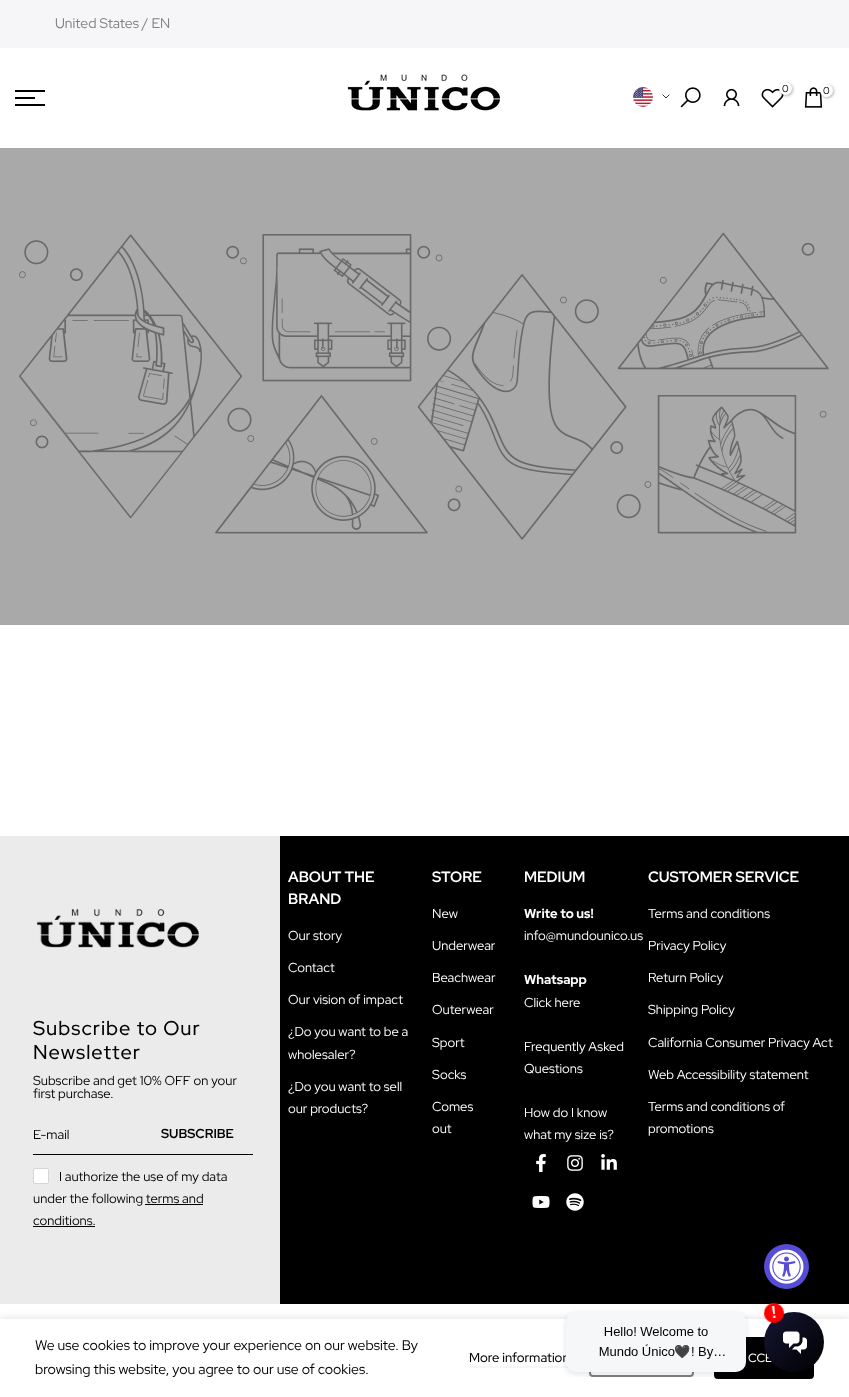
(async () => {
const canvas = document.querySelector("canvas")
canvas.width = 849
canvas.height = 1397
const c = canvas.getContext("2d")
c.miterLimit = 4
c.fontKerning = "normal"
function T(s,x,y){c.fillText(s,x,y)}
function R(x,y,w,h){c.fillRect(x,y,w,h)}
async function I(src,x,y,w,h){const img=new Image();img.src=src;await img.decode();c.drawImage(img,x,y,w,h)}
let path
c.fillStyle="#fff"
R(0,0,849,1397)
c.fillStyle="#f6f6f8"
R(0,0,849,48)
c.font="14px Red Hat Display"
c.fillStyle="#808080"
T("United States / EN",55,28)
c.fillStyle="#000"
R(15,90,30,2)
R(15,97,20,2)
R(15,104,30,2)
await I("1.png",347,74,154,37)
await I("2.png",633,87,20,20)
path = new Path2D("M669 95l-3 3l-3-3")
c.strokeStyle="#000"
c.lineWidth=0.8
c.lineCap="square"
c.stroke(path)
await I("3.png",680,87,21,21)
await I("4.png",723,88,17,19)
await I("5.png",761,88,23,20)
c.fillStyle="#0000004d"
c.filter="blur(1.5px)"
c.beginPath()
c.roundRect(780,83,13,13,6.5)
c.fill()
c.filter="none"
c.fillStyle="#fff"
c.beginPath()
c.arc(785.5,88.5,6.5,0,7)
c.fill()
c.font="10px Red Hat Display"
c.fillStyle="#000"
T("0",782,92)
await I("6.png",804,87,19,21)
c.fillStyle="#0000004d"
c.filter="blur(1.5px)"
c.beginPath()
c.roundRect(821,85,13,13,6.5)
c.fill()
c.filter="none"
c.fillStyle="#fff"
c.beginPath()
c.arc(826.5,90.5,6.5,0,7)
c.fill()
c.fillStyle="#000"
T("0",823,94)
c.fillStyle="#a9a9a9"
R(0,148,849,477)
await I("7.png",19,232,810,308)
c.fillStyle="#000"
R(280,836,569,468)
c.fillStyle="#ebebeb"
R(0,836,280,468)
await I("8.png",36,909,163,39)
c.letterSpacing="1px"
c.font="500 20px Red Hat Display"
c.fillStyle="#000"
T("Subscribe to Our",33,1035)
T("Newsletter",33,1059)
c.letterSpacing="0px"
c.font="13px Red Hat Display"
T("Subscribe and get 10% OFF on your",33,1085)
T("first purchase.",33,1098)
R(33,1154,220,1)
T("E-mail",33,1139)
c.font="bold 13px Red Hat Display"
T("SUBSCRIBE",161,1138)
c.fillStyle="#fff"
c.beginPath()
c.roundRect(33.5,1168.5,15,15,1.5)
c.fill()
c.strokeStyle="#d4d6d8"
c.lineWidth=1
c.stroke()
c.font="13px Red Hat Display"
c.fillStyle="#000"
T("I authorize the use of my data",59,1181)
T("under the following terms and",33,1203)
T("conditions.",33,1225)
R(145,1204,58,1)
R(33,1226,62,1)
c.font="bold 15px Red Hat Display"
c.fillStyle="#fff"
T("ABOUT THE",288,882)
T("BRAND",288,904)
c.font="13px Red Hat Display"
T("Our story",288,940)
T("Contact",288,972)
T("Our vision of impact",288,1004)
T("¿Do you want to be a",288,1036)
T("wholesaler?",288,1059)
T("¿Do you want to sell",288,1091)
T("our products?",288,1113)
c.font="bold 15px Red Hat Display"
T("STORE",432,882)
c.font="13px Red Hat Display"
T("New",432,918)
T("Underwear",432,950)
T("Beachwear",432,982)
T("Outerwear",432,1014)
T("Sport",432,1047)
T("Socks",432,1079)
T("Comes",432,1111)
T("out",432,1133)
c.font="bold 15px Red Hat Display"
T("MEDIUM",524,882)
c.font="800 13px Red Hat Display"
T("Write to us!",524,918)
c.font="13px Red Hat Display"
T("info@mundounico.us",524,940)
c.font="800 13px Red Hat Display"
T("Whatsapp",524,984)
c.font="13px Red Hat Display"
T("Click here",524,1007)
T("Frequently Asked",524,1051)
T("Questions",524,1073)
T("How do I know",524,1117)
T("what my size is?",524,1139)
await I("9.png",536,1154,10,18)
await I("10.png",567,1155,16,16)
await I("11.png",601,1154,16,16)
await I("12.png",532,1196,18,12)
await I("13.png",566,1193,18,18)
c.font="bold 15px Red Hat Display"
T("CUSTOMER SERVICE",648,882)
c.font="13px Red Hat Display"
T("Terms and conditions",648,918)
T("Privacy Policy",648,950)
T("Return Policy",648,982)
T("Shipping Policy",648,1014)
T("California Consumer Privacy Act",648,1047)
T("Web Accessibility statement",648,1079)
T("Terms and conditions of",648,1111)
T("promotions",648,1133)
c.fillStyle="#574cd5"
c.beginPath()
c.arc(786.5,1266.5,22.5,0,7)
c.fill()
await I("14.png",769,1249,35,35)
c.fillStyle="#00000024"
c.filter="blur(4.5px)"
c.beginPath()
c.rect(0,1319,849,78)
c.fill()
c.filter="none"
c.fillStyle="#fff"
R(0,1319,849,78)
c.font="500 13px Red Hat Display"
c.fillStyle="#000"
T("More information",469,1362)
c.fillStyle="#f6f6f8"
R(469,1366,100,2)
c.beginPath()
c.roundRect(590,1340,103,36,3)
c.strokeStyle="#808080"
c.lineWidth=2
c.stroke()
c.fillStyle="#000"
c.beginPath()
c.roundRect(715,1338,98,40,3)
c.fill()
c.strokeStyle="#000"
c.stroke()
c.font="500 12px Red Hat Display"
c.fillStyle="#fff"
T("CCE",748,1362)
await I("15.png",563,1302,261,75)
c.font="14px Red Hat Display"
c.fillStyle="#000"
T("We use cookies to improve your experience on our website. By",35,1350)
T("browsing this website, you agree to our use of cookies.",35,1374)
})()
